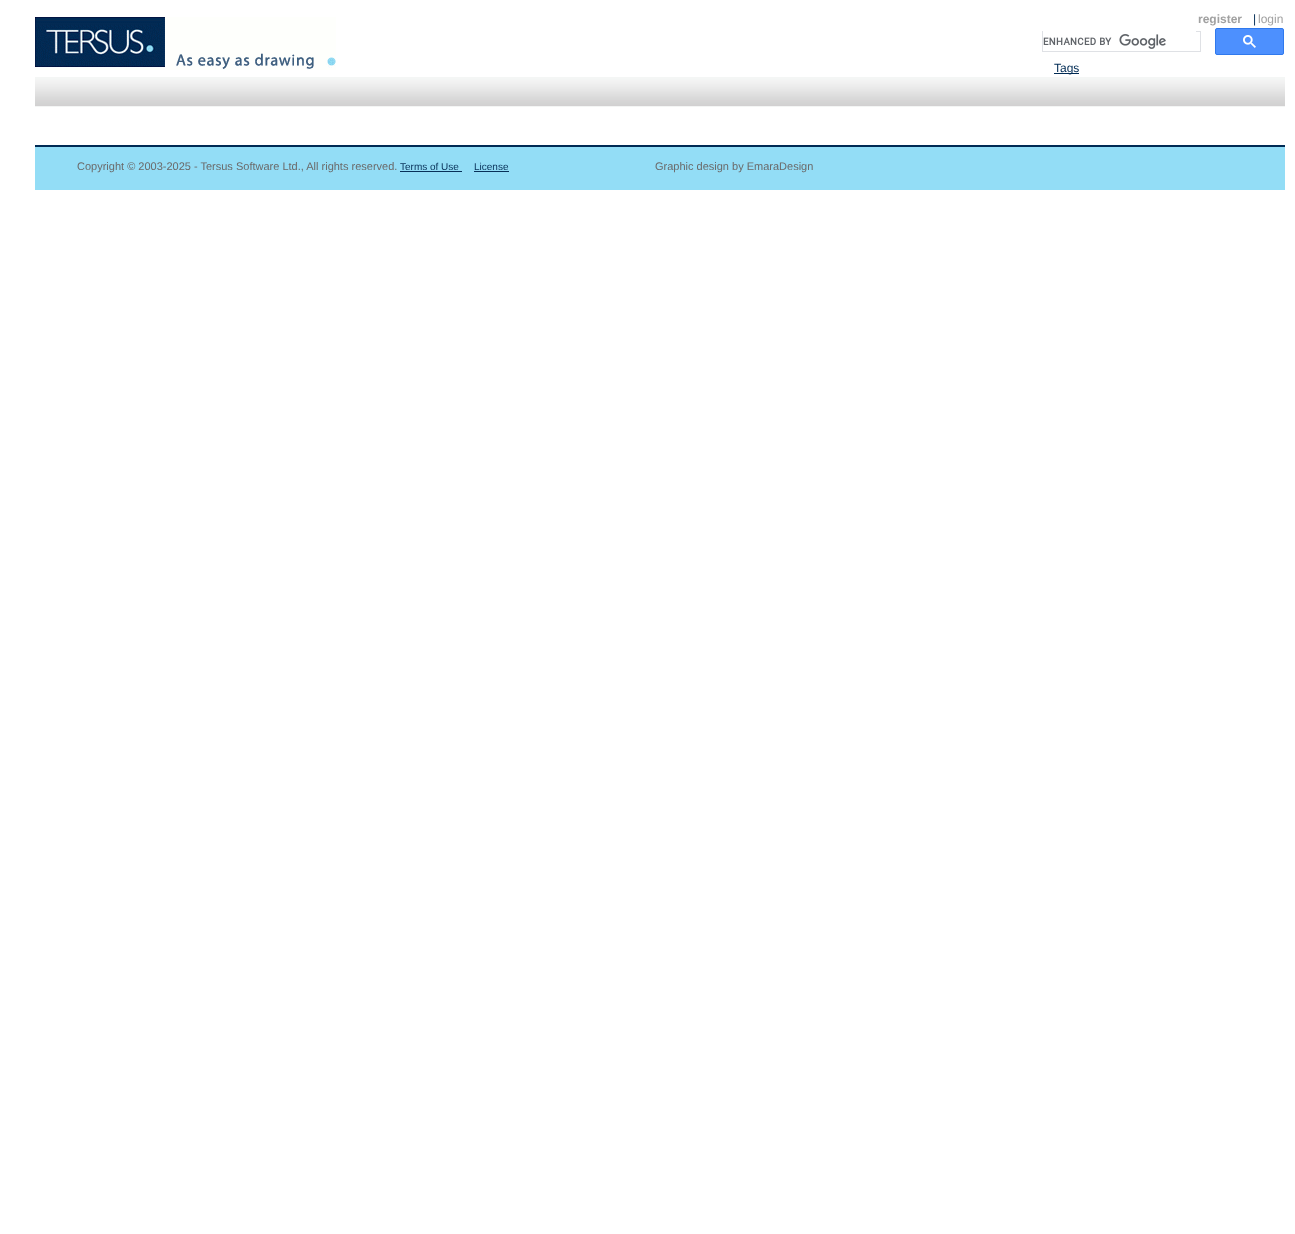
(async () => {
const canvas = document.querySelector("canvas")
canvas.width = 1295
canvas.height = 1234
const c = canvas.getContext("2d")
c.miterLimit = 4
c.fontKerning = "normal"
function T(s,x,y){c.fillText(s,x,y)}
function R(x,y,w,h){c.fillRect(x,y,w,h)}
async function I(src,x,y,w,h){const img=new Image();img.src=src;await img.decode();c.drawImage(img,x,y,w,h)}
c.fillStyle="#fff"
R(0,0,1295,1234)
await I("1.png",35,17,301,53)
c.font="bold 12px Liberation Sans"
c.fillStyle="#a1a1a1"
T("register",1198,23)
c.font="12px Liberation Sans"
c.fillStyle="#002b54"
T("|",1253,23)
c.fillStyle="#a1a1a1"
T("login",1258,23)
c.strokeStyle="#dfe1e5"
c.strokeRect(1042.5,31.5,158,20)
c.fillStyle="#fff"
R(1043,31,153,1)
await I("2.png",1043,34,123,15)
c.fillStyle="#4d90fe"
c.beginPath()
c.roundRect(1215.5,28.5,68,26,1.5)
c.fill()
c.strokeStyle="#3079ed"
c.stroke()
await I("3.png",1243,35,13,13)
c.fillStyle="#002b54"
R(1054,73,25,1)
T("Tags",1054,72)
await I("4.png",35,77,1250,30)
await I("5.png",35,78,1250,28)
c.fillStyle="#93ddf6"
R(35,147,1250,43)
c.fillStyle="#002a54"
R(35,145,1250,2)
c.font="11px Liberation Sans"
c.fillStyle="#6b6a6a"
T("Copyright © 2003-2025 - Tersus Software Ltd., All rights reserved.",77,170)
c.font="10px Liberation Sans"
c.fillStyle="#073058"
T("Terms of Use",400,170)
R(400,171,62,1)
T("License",474,170)
R(474,171,35,1)
c.font="11px Liberation Sans"
c.fillStyle="#6b6a6a"
T("Graphic design by EmaraDesign",655,170)
})()
